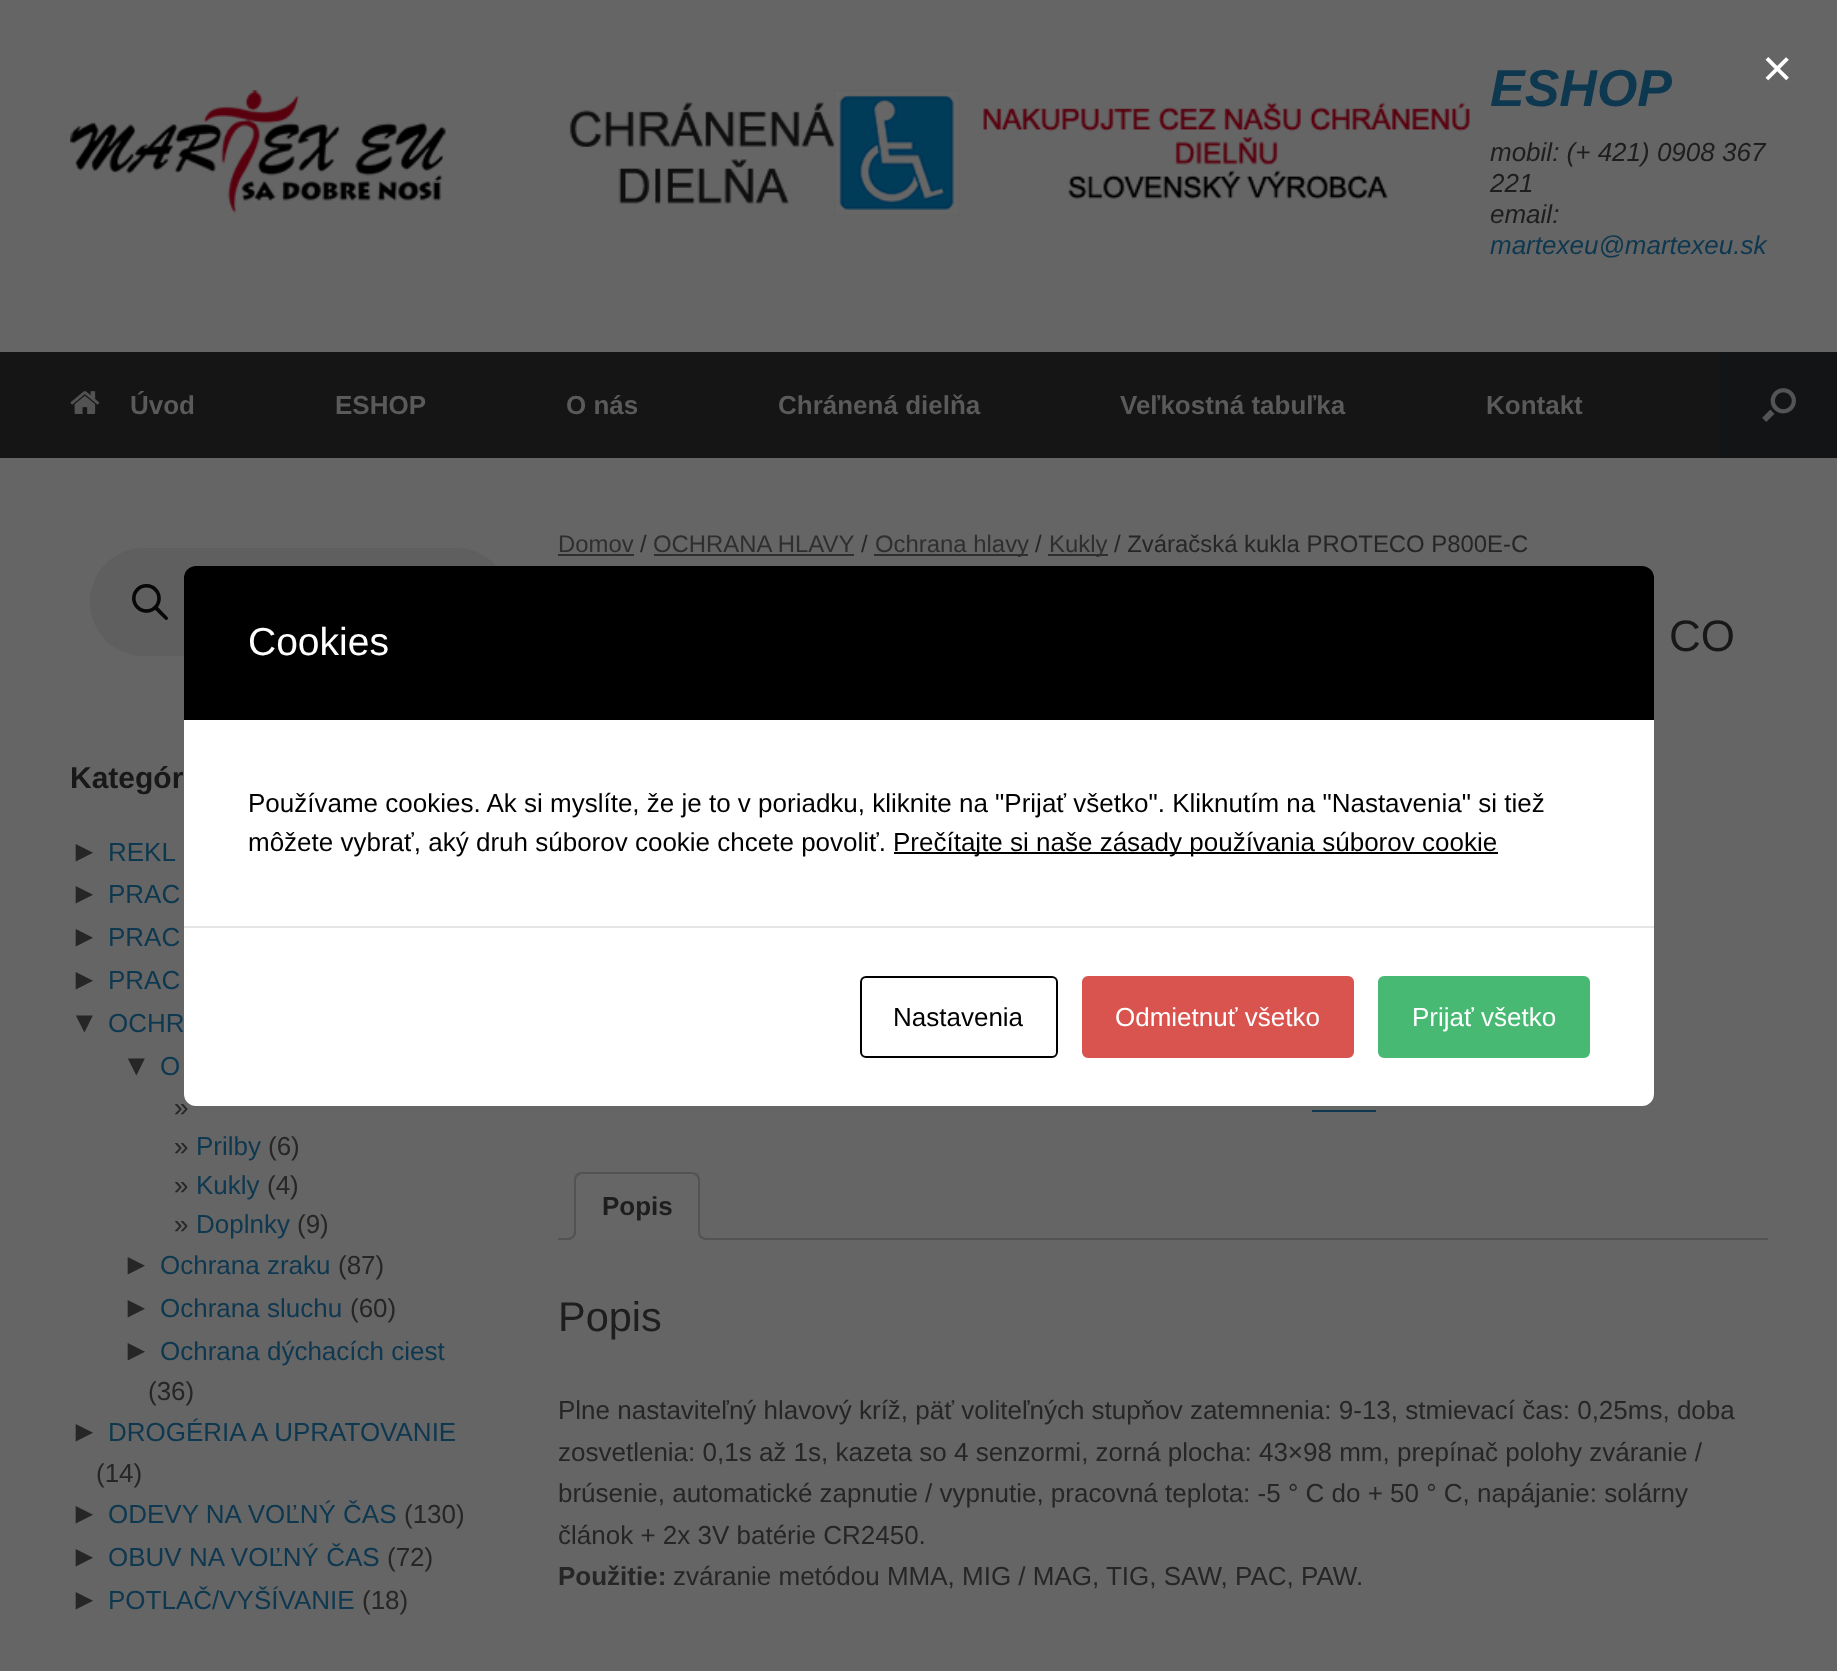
(async () => {
const canvas = document.querySelector("canvas")
canvas.width = 1837
canvas.height = 1671
const c = canvas.getContext("2d")
c.miterLimit = 4
c.fontKerning = "normal"
function T(s,x,y){c.fillText(s,x,y)}
function R(x,y,w,h){c.fillRect(x,y,w,h)}
function Q(x,y,w,h,r){c.beginPath();c.roundRect(x,y,w,h,r);c.fill()}
async function I(src,x,y,w,h){const img=new Image();img.src=src;await img.decode();c.drawImage(img,x,y,w,h)}
let path
c.fillStyle="#656565"
R(0,0,1837,1671)
c.font="52px Liberation Sans"
c.fillStyle="#fff"
T("×",1762,86)
c.fillStyle="#5f5f5f"
Q(90,548,420,108,54)
c.fillStyle="#000"
c.beginPath()
c.roundRect(184,566,1470,154,[12,12,0,0])
c.fill()
c.font="39px Liberation Sans"
c.fillStyle="#fff"
T("Cookies",248,655)
R(184,720,1470,206)
c.font="26px Liberation Sans"
c.fillStyle="#000"
T("Používame cookies. Ak si myslíte, že je to v poriadku, kliknite na \"Prijať všetko\". Kliknutím na \"Nastavenia\" si tiež",248,812)
T("môžete vybrať, aký druh súborov cookie chcete povoliť.",248,851)
R(894,852,604,2)
T("Prečítajte si naše zásady používania súborov cookie",893,851)
c.fillStyle="#262626"
T("»",174,1116)
c.fillStyle="#fff"
c.beginPath()
c.roundRect(184,926,1470,180,[0,0,12,12])
c.fill()
c.fillStyle="#e6e6e6"
R(184,926,1470,2)
c.beginPath()
c.roundRect(861,977,196,80,5)
c.strokeStyle="#000"
c.lineWidth=2
c.stroke()
c.fillStyle="#000"
T("Nastavenia",893,1026)
c.fillStyle="#d9534f"
c.beginPath()
c.roundRect(1083,977,270,80,5)
c.fill()
c.strokeStyle="#d9534f"
c.stroke()
c.fillStyle="#fff"
T("Odmietnuť všetko",1115,1026)
c.fillStyle="#47b973"
c.beginPath()
c.roundRect(1379,977,210,80,5)
c.fill()
c.strokeStyle="#47b973"
c.stroke()
c.fillStyle="#fff"
T("Prijať všetko",1412,1026)
await I("1.png",70,90,1400,126)
c.font="italic bold 52px Liberation Sans"
c.fillStyle="#0e3850"
T("ESHOP",1490,106)
c.font="italic 26px Liberation Sans"
c.fillStyle="#1e1e1e"
T("mobil: (+ 421) 0908 367",1490,161)
T("221",1490,192)
T("email:",1490,223)
c.fillStyle="#0e3850"
T("martexeu@martexeu.sk",1490,254)
c.fillStyle="#151516"
R(0,352,1720,106)
await I("2.png",70,391,30,23)
c.font="bold 26px Liberation Sans"
c.fillStyle="#5a5a5a"
T("Úvod",130,414)
T("ESHOP",335,414)
T("O nás",566,414)
T("Chránená dielňa",778,414)
T("Veľkostná tabuľka",1120,414)
T("Kontakt",1486,414)
c.fillStyle="#131415"
R(1720,352,117,106)
await I("3.png",1762,388,34,34)
await I("4.png",132,584,36,36)
c.font="bold 30px Liberation Sans"
c.fillStyle="#181818"
T("Kategór",70,788)
c.font="29px Liberation Sans"
c.fillStyle="#262626"
T("►",70,861)
c.wordSpacing="-1px"
c.font="26px Liberation Sans"
c.fillStyle="#0e3850"
T("REKL",108,861)
c.wordSpacing="0px"
c.font="29px Liberation Sans"
c.fillStyle="#262626"
T("►",70,903)
c.font="26px Liberation Sans"
c.fillStyle="#0e3850"
T("PRAC",108,903)
c.font="29px Liberation Sans"
c.fillStyle="#262626"
T("►",70,946)
c.font="26px Liberation Sans"
c.fillStyle="#0e3850"
T("PRAC",108,946)
c.font="29px Liberation Sans"
c.fillStyle="#262626"
T("►",70,989)
c.font="26px Liberation Sans"
c.fillStyle="#0e3850"
T("PRAC",108,989)
c.font="29px Liberation Sans"
c.fillStyle="#262626"
T("▼",70,1032)
c.font="26px Liberation Sans"
c.fillStyle="#0e3850"
T("OCHR",108,1032)
c.font="29px Liberation Sans"
c.fillStyle="#262626"
T("▼",122,1075)
c.font="26px Liberation Sans"
c.fillStyle="#0e3850"
T("O",160,1075)
c.fillStyle="#262626"
T("»",174,1155)
c.fillStyle="#0e3850"
T("Prilby",196,1155)
c.fillStyle="#262626"
T("(6)",268,1155)
T("»",174,1194)
c.fillStyle="#0e3850"
T("Kukly",196,1194)
c.fillStyle="#262626"
T("(4)",267,1194)
T("»",174,1233)
c.fillStyle="#0e3850"
T("Doplnky",196,1233)
c.fillStyle="#262626"
T("(9)",297,1233)
c.font="29px Liberation Sans"
T("►",122,1274)
c.font="26px Liberation Sans"
c.fillStyle="#0e3850"
T("Ochrana zraku",160,1274)
c.fillStyle="#262626"
T("(87)",338,1274)
c.font="29px Liberation Sans"
T("►",122,1317)
c.font="26px Liberation Sans"
c.fillStyle="#0e3850"
T("Ochrana sluchu",160,1317)
c.fillStyle="#262626"
T("(60)",350,1317)
c.font="29px Liberation Sans"
T("►",122,1360)
c.font="26px Liberation Sans"
c.fillStyle="#0e3850"
T("Ochrana dýchacích ciest",160,1360)
c.fillStyle="#262626"
T("(36)",148,1400)
c.font="29px Liberation Sans"
T("►",70,1441)
c.font="26px Liberation Sans"
c.fillStyle="#0e3850"
T("DROGÉRIA A UPRATOVANIE",108,1441)
c.fillStyle="#262626"
T("(14)",96,1482)
c.font="29px Liberation Sans"
T("►",70,1523)
c.font="26px Liberation Sans"
c.fillStyle="#0e3850"
T("ODEVY NA VOĽNÝ ČAS",108,1523)
c.fillStyle="#262626"
T("(130)",404,1523)
c.font="29px Liberation Sans"
T("►",70,1566)
c.font="26px Liberation Sans"
c.fillStyle="#0e3850"
T("OBUV NA VOĽNÝ ČAS",108,1566)
c.fillStyle="#262626"
T("(72)",387,1566)
c.font="29px Liberation Sans"
T("►",70,1609)
c.font="26px Liberation Sans"
c.fillStyle="#0e3850"
T("POTLAČ/VYŠÍVANIE",108,1609)
c.fillStyle="#262626"
T("(18)",362,1609)
c.font="23.9px Liberation Sans"
c.fillStyle="#2f2f2f"
T("Domov",558,552)
R(558,554,76,2)
c.fillStyle="#262626"
T("/",640,552)
c.fillStyle="#2f2f2f"
T("OCHRANA HLAVY",653,552)
R(654,554,200,2)
c.fillStyle="#262626"
T("/",861,552)
c.fillStyle="#2f2f2f"
R(874,554,154,2)
T("Ochrana hlavy",875,552)
c.fillStyle="#262626"
T("/",1035,552)
c.fillStyle="#2f2f2f"
R(1048,554,60,2)
T("Kukly",1049,552)
c.fillStyle="#262626"
T("/ Zváračská kukla PROTECO P800E-C",1114,552)
c.font="44px Liberation Sans"
c.fillStyle="#181818"
T("CO",1669,651)
c.fillStyle="#0e3850"
R(1312,1110,64,2)
c.fillStyle="#545254"
R(558,1238,1210,2)
c.fillStyle="#666"
c.beginPath()
c.roundRect(574,1172,126,68,[8,8,0,0])
c.fill()
c.fillStyle="#545254"
path = new Path2D("M582 1172c-2 0-4 1-6 2l2 2l3-2h112l3 2l2-2c-2-1-4-2-6-2z")
c.fill(path)
path = new Path2D("M700 1240v-60c0-2-1-4-2-6l-2 2c1 1 2 2 2 4v58z")
c.fill(path)
c.fillStyle="#666"
path = new Path2D("M700 1240l-2-2h-122l-2 2z")
c.fill(path)
c.fillStyle="#545254"
path = new Path2D("M574 1240l2-2v-58c0-2 1-3 2-4l-2-2c-1 2-2 4-2 6z")
c.fill(path)
c.font="bold 26px Liberation Sans"
c.fillStyle="#1e1e1e"
T("Popis",602,1215)
c.save()
c.beginPath()
c.rect(558,1172,1210,68)
c.clip()
c.fillStyle="#666"
path = new Path2D("M570 1239.5v4.5c7 0 10-3 10-10h-4.5c-.5 3-2.5 5-5.5 5.5z")
c.fill(path)
c.restore()
c.fillStyle="#545254"
path = new Path2D("M566 1230h10c0 7-3 10-10 10zm0 0h8c0 6-2 8-8 8z")
c.fill(path,"evenodd")
c.save()
c.beginPath()
c.rect(558,1172,1210,68)
c.clip()
c.fillStyle="#666"
path = new Path2D("M694 1234c0 7 3 10 10 10v-4.5c-3-.5-5-2.5-5.5-5.5z")
c.fill(path)
c.restore()
path = new Path2D("M698 1230h10v10c-5 0-10-2-10-8zm2 0h8v8c-4 0-8-1-8-6z")
c.fill(path,"evenodd")
c.font="41.5px Liberation Sans"
c.fillStyle="#1e1e1e"
T("Popis",558,1331)
c.font="26px Liberation Sans"
c.fillStyle="#262626"
T("Plne nastaviteľný hlavový kríž, päť voliteľných stupňov zatemnenia: 9-13, stmievací čas: 0,25ms, doba",558,1419)
T("zosvetlenia: 0,1s až 1s, kazeta so 4 senzormi, zorná plocha: 43×98 mm, prepínač polohy zváranie /",558,1461)
T("brúsenie, automatické zapnutie / vypnutie, pracovná teplota: -5 ° C do + 50 ° C, napájanie: solárny",558,1502)
T("článok + 2x 3V batérie CR2450.",558,1544)
c.font="bold 26px Liberation Sans"
T("Použitie:",558,1585)
c.font="26px Liberation Sans"
T("zváranie metódou MMA, MIG / MAG, TIG, SAW, PAC, PAW.",673,1585)
})()
